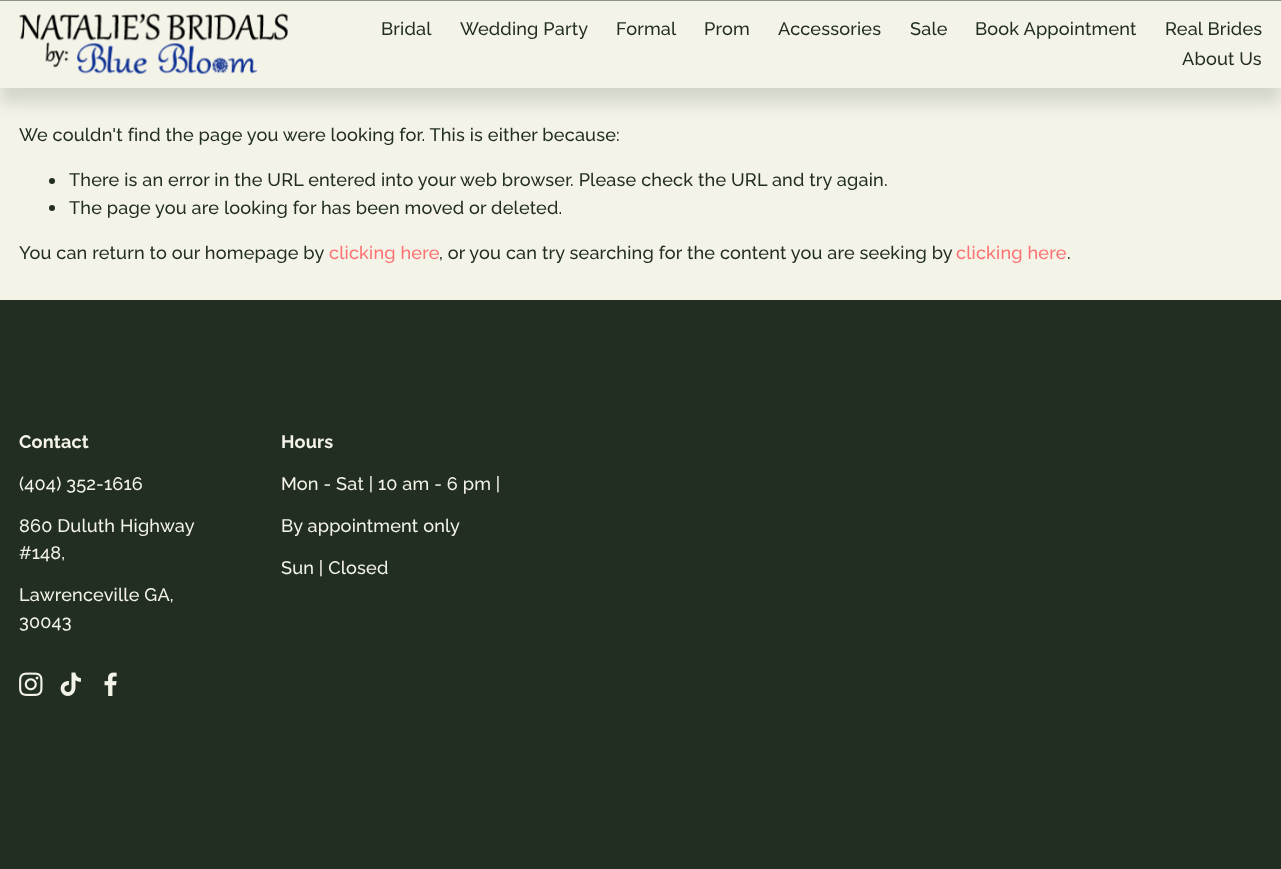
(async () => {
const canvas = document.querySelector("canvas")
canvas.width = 1281
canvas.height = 869
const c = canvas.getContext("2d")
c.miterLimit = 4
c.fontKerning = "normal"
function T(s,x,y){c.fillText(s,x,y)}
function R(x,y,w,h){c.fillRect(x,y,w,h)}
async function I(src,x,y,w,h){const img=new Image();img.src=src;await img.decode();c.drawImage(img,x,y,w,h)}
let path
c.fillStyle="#f4f3e8"
R(0,0,1281,869)
c.save()
path = new Path2D("M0 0h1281v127h-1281zm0 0h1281v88h-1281z")
c.clip(path,"evenodd")
c.fillStyle="#d4d5ca"
c.filter="blur(7.5px)"
c.beginPath()
c.rect(0,15,1281,88)
c.fill()
c.filter="none"
c.restore()
c.fillStyle="#8d9286"
R(0,0,1281,1)
await I("1.png",19,13,269,61)
c.letterSpacing="0.18px"
c.font="500 18.1px Raleway"
c.fillStyle="#212e21"
T("Bridal",381,35)
T("Wedding Party",460,35)
T("Formal",616,35)
T("Prom",704,35)
T("Accessories",778,35)
T("Sale",910,35)
T("Book Appointment",975,35)
T("Real Brides",1165,35)
T("About Us",1182,65)
T("We couldn't find the page you were looking for. This is either because:",19,141)
c.beginPath()
c.arc(52,181,3,0,7)
c.fill()
T("There is an error in the URL entered into your web browser. Please check the URL and try again.",69,186)
c.beginPath()
c.arc(52,208,3,0,7)
c.fill()
T("The page you are looking for has been moved or deleted.",69,214)
T("You can return to our homepage by",19,259)
c.fillStyle="#fc7272"
T("clicking here",329,259)
c.fillStyle="#212e21"
T(", or you can try searching for the content you are seeking by",439,259)
c.fillStyle="#fc7272"
T("clicking here",956,259)
c.fillStyle="#212e21"
T(".",1067,259)
R(0,300,1281,569)
c.font="bold 18.1px Raleway"
c.fillStyle="#f4f3e8"
T("Contact",19,448)
c.font="500 18.1px Raleway"
T("(404) 352-1616",19,490)
T("860 Duluth Highway",19,532)
T("#148,",19,559)
T("Lawrenceville GA,",19,601)
T("30043",19,628)
c.font="bold 18.1px Raleway"
T("Hours",281,448)
c.font="500 18.1px Raleway"
T("Mon - Sat | 10 am - 6 pm |",281,490)
T("By appointment only",281,532)
T("Sun | Closed",281,574)
await I("2.png",19,672,24,24)
await I("3.png",60,672,21,24)
await I("4.png",104,672,13,24)
})()
